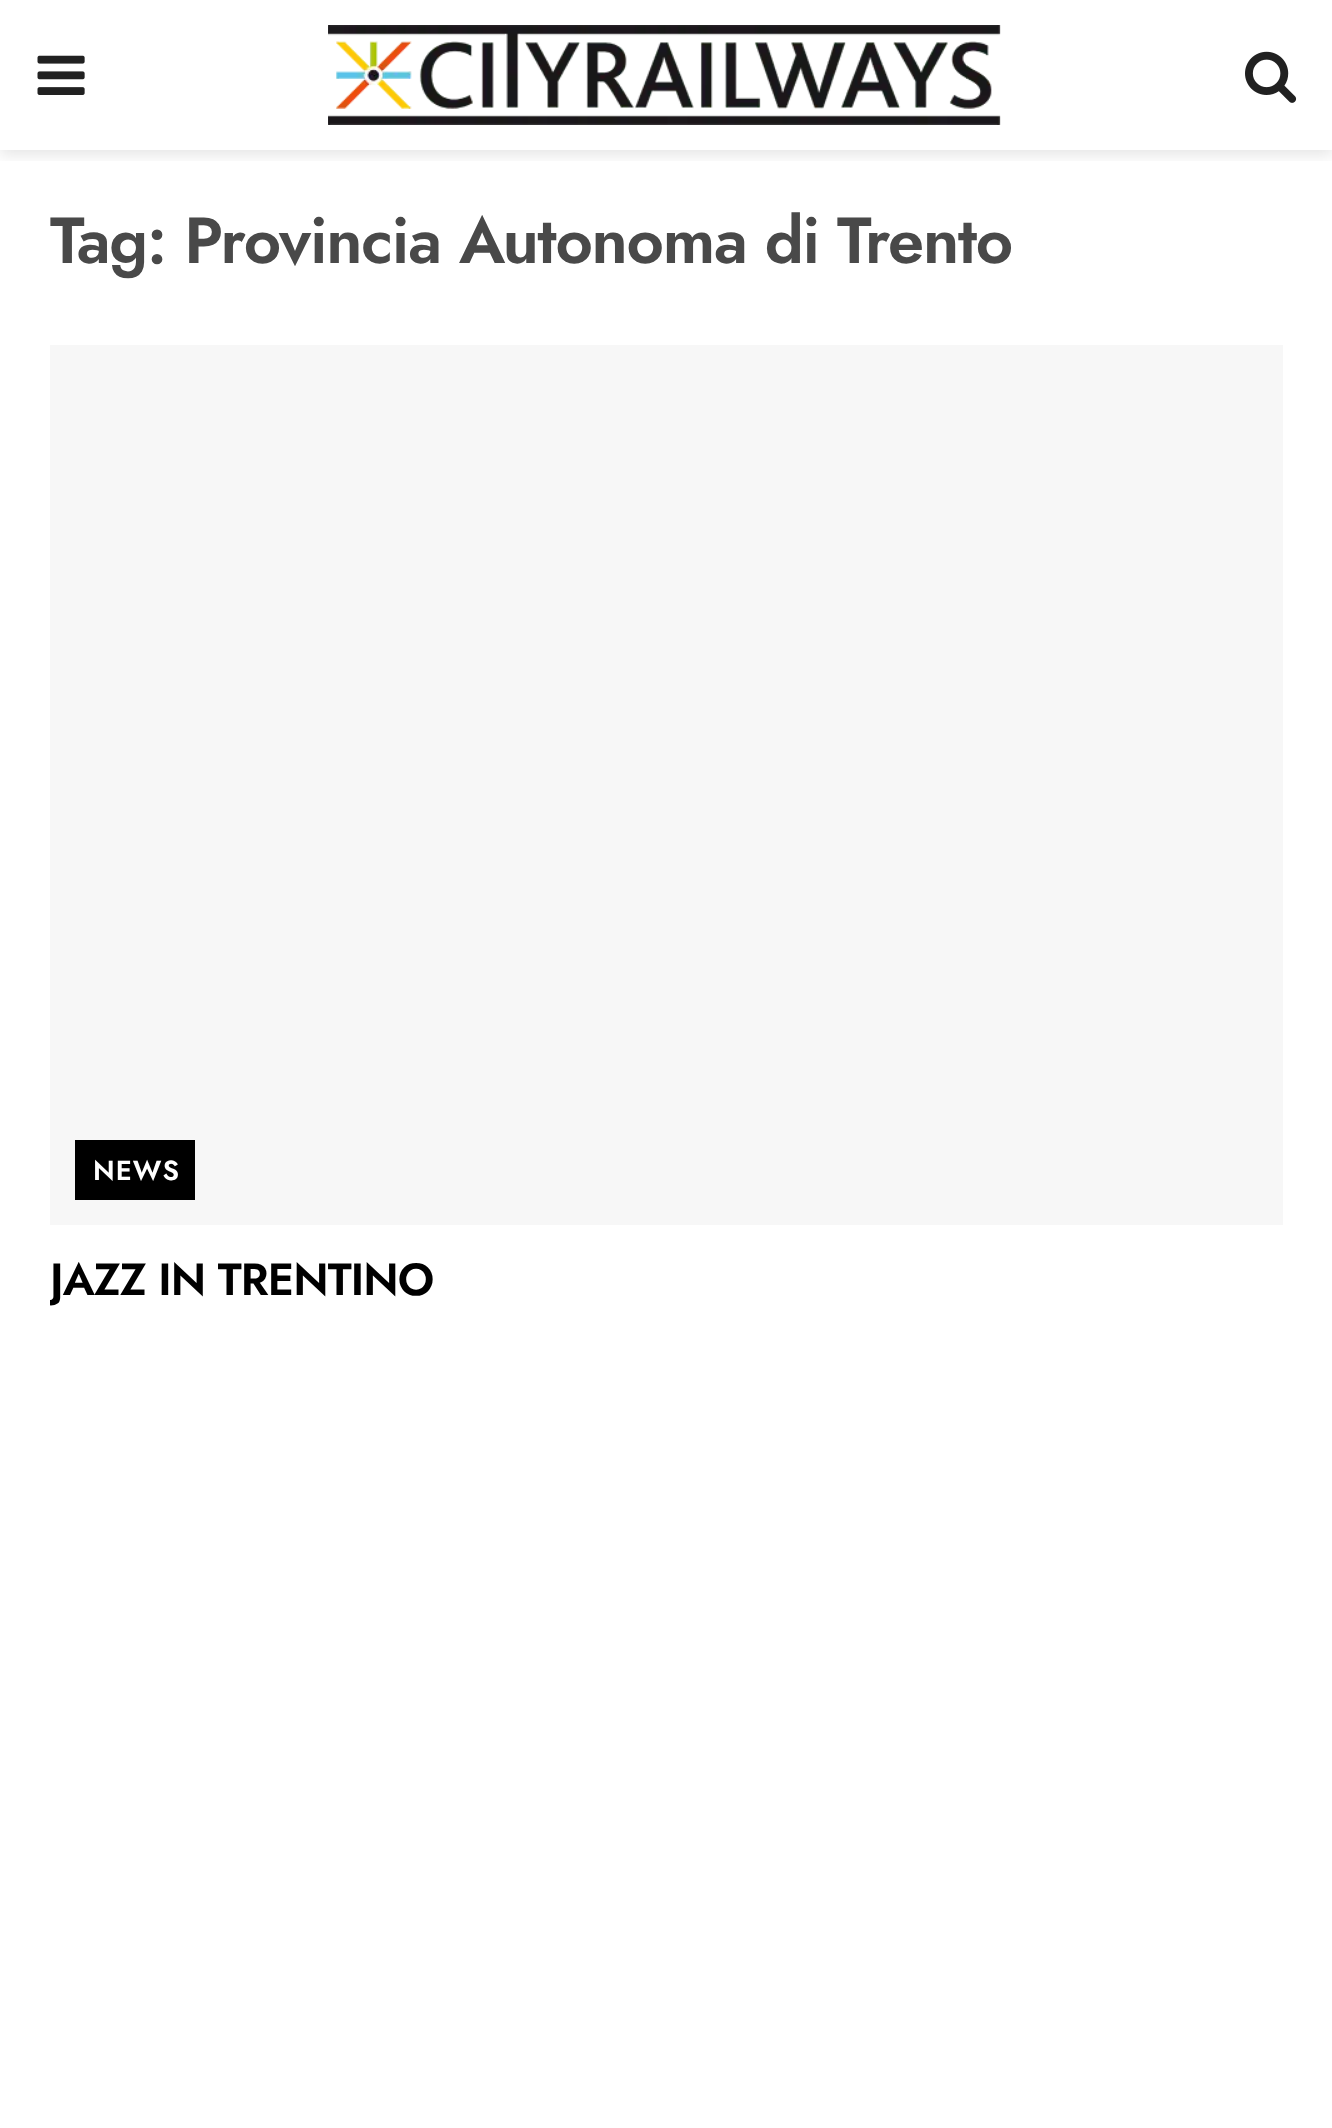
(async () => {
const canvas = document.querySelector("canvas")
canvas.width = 1332
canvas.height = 2128
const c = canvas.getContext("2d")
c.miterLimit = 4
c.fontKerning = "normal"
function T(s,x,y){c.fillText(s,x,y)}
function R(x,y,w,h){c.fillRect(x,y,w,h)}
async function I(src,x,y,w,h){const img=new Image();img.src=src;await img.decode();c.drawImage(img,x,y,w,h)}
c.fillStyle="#fff"
R(0,0,1332,2128)
c.save()
c.beginPath()
c.rect(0,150,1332,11)
c.clip()
c.fillStyle="#0000001a"
c.filter="blur(7.5px)"
c.beginPath()
c.rect(0,5,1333,150)
c.fill()
c.filter="none"
c.restore()
await I("1.png",37,55,48,40)
await I("2.png",328,25,673,100)
await I("3.png",1245,51,52,52)
c.letterSpacing="-1.3px"
c.font="600 65px Jost"
c.fillStyle="#494949"
T("Tag: Provincia Autonoma di Trento",50,263)
c.fillStyle="#f7f7f7"
R(50,345,1233,880)
c.fillStyle="#000"
R(75,1140,120,60)
c.letterSpacing="1px"
c.font="600 27.5px Jost"
c.fillStyle="#fff"
T("NEWS",93,1180)
c.save()
c.beginPath()
c.rect(50,345,1233,1043)
c.clip()
c.letterSpacing="-0.9px"
c.font="600 45px Jost"
c.fillStyle="#000"
T("JAZZ IN TRENTINO",50,1295)
c.restore()
})()
